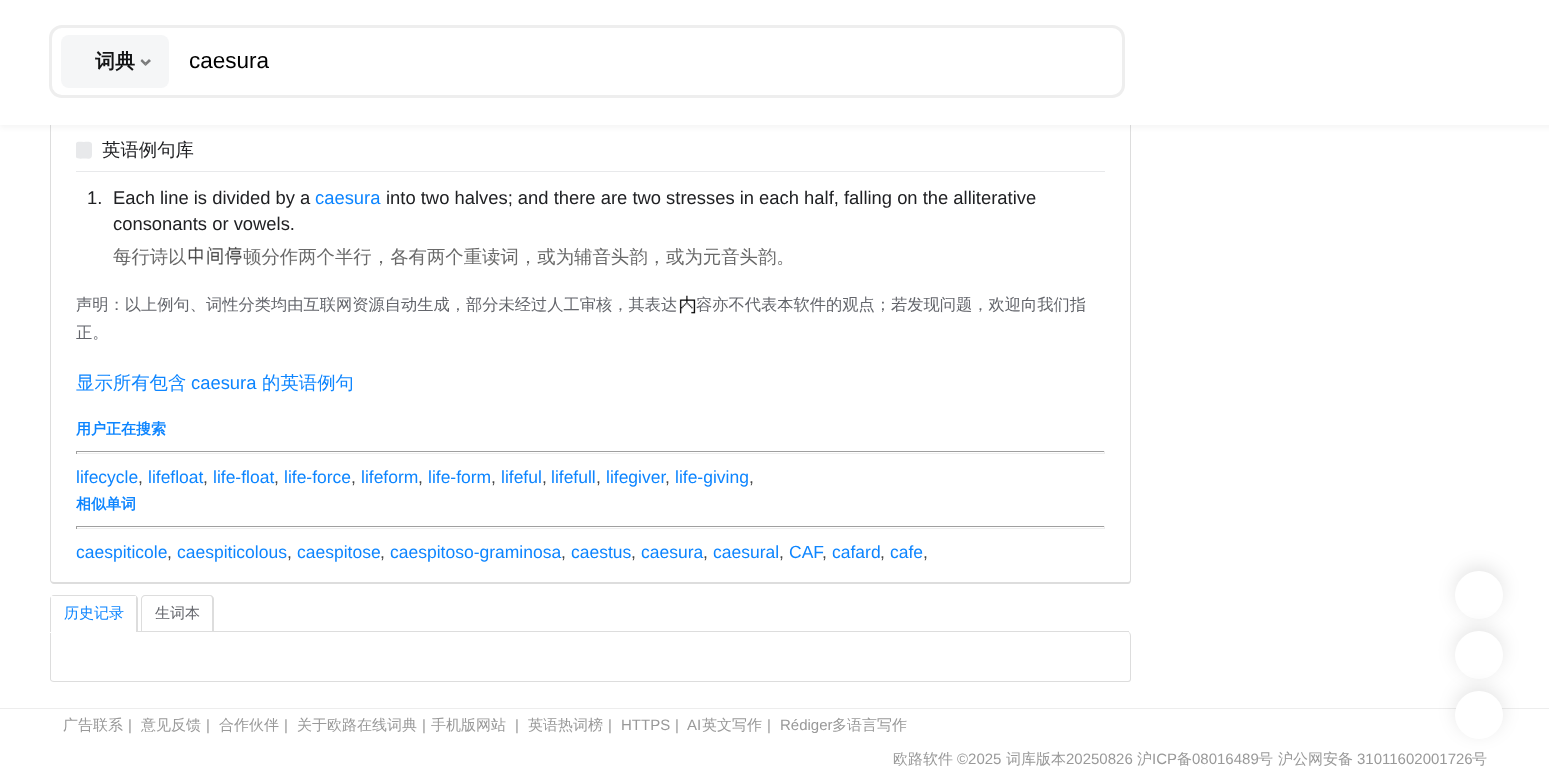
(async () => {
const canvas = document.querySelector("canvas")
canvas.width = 1549
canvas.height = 776
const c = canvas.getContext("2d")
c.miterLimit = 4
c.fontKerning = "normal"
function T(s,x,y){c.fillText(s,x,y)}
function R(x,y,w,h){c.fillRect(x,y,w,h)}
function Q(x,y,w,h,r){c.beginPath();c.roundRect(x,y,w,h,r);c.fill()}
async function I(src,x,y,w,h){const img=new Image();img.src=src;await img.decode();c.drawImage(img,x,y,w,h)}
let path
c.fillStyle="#fff"
R(0,0,1549,776)
c.fillStyle="#ddd"
path = new Path2D("M50-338h1078c2 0 3 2 3 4v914c0 2-1 4-3 4h-1074c-2 0-4-2-4-4zm1 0h1077c1 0 2 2 2 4v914c0 1-1 2-2 2h-1074c-2 0-3-1-3-2z")
c.fill(path,"evenodd")
c.fillStyle="#0000000a"
c.filter="blur(2.5px)"
c.beginPath()
c.rect(0,3,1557,125)
c.fill()
c.filter="none"
c.fillStyle="#fff"
R(0,0,1549,125)
c.beginPath()
c.roundRect(50.5,26.5,1073,70,11.5)
c.strokeStyle="#eee"
c.lineWidth=3
c.stroke()
c.fillStyle="#f5f6f7"
Q(61,35,108,53,8)
c.font="bold 20px WenQuanYi Zen Hei"
c.fillStyle="#131415"
T("词典",95,68)
c.fillStyle="#7b7b7c"
path = new Path2D("M151 61l-5.5 5v-3.5l3.5-3.5z")
c.fill(path)
c.fillStyle="#00000080"
path = new Path2D("M145.5 66l-5-5l1.5-2l3.5 3.5z")
c.fill(path)
c.font="22.5px Liberation Sans"
c.fillStyle="#000"
T("caesura",189,68)
c.fillStyle="#e8e9eb"
R(76,171,1029,1)
c.save()
c.beginPath()
c.rect(76,140,1029,31)
c.clip()
path = new Path2D("M92 144.5v9.5c0 6-3 4.5-8 4.5c-2.5 0-8 1-8.5-2.5v-9.5c0-6 3-4.5 8.5-4.5c2 0 8-1 8 2.5z")
c.fill(path)
c.restore()
c.font="500 18.4px WenQuanYi Zen Hei"
c.fillStyle="#202124"
T("英语例句库",102,156)
c.font="18.4px Liberation Sans"
T("1.",87,204)
T("Each line is divided by a",113,204)
c.fillStyle="#0d85ff"
T("caesura",315,204)
c.fillStyle="#202124"
T("into two halves; and there are two stresses in each half, falling on the alliterative",386,204)
T("consonants or vowels.",113,230)
c.font="500 18.4px WenQuanYi Zen Hei"
c.fillStyle="#696969"
T("每行诗以",113,263)
await I("1.png",186,246,17,19)
await I("2.png",207,246,16,19)
await I("3.png",224,246,18,19)
T("顿分作两个半行，各有两个重读词，或为辅音头韵，或为元音头韵。",243,263)
c.font="500 16.25px WenQuanYi Zen Hei"
c.fillStyle="#63656b"
T("声明：以上例句、词性分类均由互联网资源自动生成，部分未经过人工审核，其表达",76,310)
await I("4.png",679,295,17,19)
T("容亦不代表本软件的观点；若发现问题，欢迎向我们指",696,310)
T("正。",76,338)
c.font="500 18.4px WenQuanYi Zen Hei"
c.fillStyle="#0d85ff"
T("显示所有包含",76,389)
c.font="18.4px Liberation Sans"
T("caesura",191,389)
c.font="500 18.4px WenQuanYi Zen Hei"
T("的英语例句",262,389)
c.font="bold 15px WenQuanYi Zen Hei"
T("用户正在搜索",76,434)
c.fillStyle="#9f9f9f"
R(76,451,1029,1)
c.fillStyle="#eee"
R(1104,451,1,3)
R(76,453,1029,1)
c.fillStyle="#9f9f9f"
R(76,451,1,3)
c.font="17.5px Liberation Sans"
c.fillStyle="#0d85ff"
T("lifecycle",76,483)
c.fillStyle="#444"
T(",",138,483)
c.fillStyle="#0d85ff"
T("lifefloat",148,483)
c.fillStyle="#444"
T(",",203,483)
c.fillStyle="#0d85ff"
T("life-float",213,483)
c.fillStyle="#444"
T(",",274,483)
c.fillStyle="#0d85ff"
T("life-force",284,483)
c.fillStyle="#444"
T(",",351,483)
c.fillStyle="#0d85ff"
T("lifeform",361,483)
c.fillStyle="#444"
T(",",418,483)
c.fillStyle="#0d85ff"
T("life-form",428,483)
c.fillStyle="#444"
T(",",491,483)
c.fillStyle="#0d85ff"
T("lifeful",501,483)
c.fillStyle="#444"
T(",",542,483)
c.fillStyle="#0d85ff"
T("lifefull",551,483)
c.fillStyle="#444"
T(",",596,483)
c.fillStyle="#0d85ff"
T("lifegiver",606,483)
c.fillStyle="#444"
T(",",665,483)
c.fillStyle="#0d85ff"
T("life-giving",675,483)
c.fillStyle="#444"
T(",",749,483)
c.font="bold 15px WenQuanYi Zen Hei"
c.fillStyle="#0d85ff"
T("相似单词",76,509)
c.fillStyle="#9f9f9f"
R(76,526,1029,1)
c.fillStyle="#eee"
R(1104,526,1,3)
R(76,528,1029,1)
c.fillStyle="#9f9f9f"
R(76,526,1,3)
c.font="17.5px Liberation Sans"
c.fillStyle="#0d85ff"
T("caespiticole",76,558)
c.fillStyle="#444"
T(",",167,558)
c.fillStyle="#0d85ff"
T("caespiticolous",177,558)
c.fillStyle="#444"
T(",",287,558)
c.fillStyle="#0d85ff"
T("caespitose",297,558)
c.fillStyle="#444"
T(",",380,558)
c.fillStyle="#0d85ff"
T("caespitoso-graminosa",390,558)
c.fillStyle="#444"
T(",",561,558)
c.fillStyle="#0d85ff"
T("caestus",571,558)
c.fillStyle="#444"
T(",",631,558)
c.fillStyle="#0d85ff"
T("caesura",641,558)
c.fillStyle="#444"
T(",",703,558)
c.fillStyle="#0d85ff"
T("caesural",713,558)
c.fillStyle="#444"
T(",",779,558)
c.fillStyle="#0d85ff"
T("CAF",789,558)
c.fillStyle="#444"
T(",",822,558)
c.fillStyle="#0d85ff"
T("cafard",832,558)
c.fillStyle="#444"
T(",",880,558)
c.fillStyle="#0d85ff"
T("cafe",890,558)
c.fillStyle="#444"
T(",",923,558)
c.fillStyle="#ddd"
R(138,631,991,1)
path = new Path2D("M50 632h1078c2 0 3 2 3 4v43c0 2-1 3-3 3h-1074c-2 0-4-1-4-3zm1 0h1077c1 0 2 2 2 4v43c0 1-1 2-2 2h-1074c-2 0-3-1-3-2z")
c.fill(path,"evenodd")
c.fillStyle="#fff"
c.beginPath()
c.roundRect(50,595,88,38,[4,4,0,0])
c.fill()
c.fillStyle="#ddd"
path = new Path2D("M54 595h80c2 0 4 2 4 4v33h-88v-33c0-2 2-4 4-4zm0 1h80c1 0 2 1 2 3v33h-85v-33c0-2 1-3 3-3z")
c.fill(path,"evenodd")
c.fillStyle="#fff"
R(51,596,85,2)
c.font="500 15px WenQuanYi Zen Hei"
c.fillStyle="#0d85ff"
T("历史记录",64,618)
c.fillStyle="#ddd"
path = new Path2D("M145 595h65c2 0 4 2 4 4v32h-73v-32c0-2 2-4 4-4zm0 1h65c1 0 2 1 2 3v32h-70v-32c0-2 2-3 3-3z")
c.fill(path,"evenodd")
c.fillStyle="#63656b"
T("生词本",155,618)
c.fillStyle="#0000001a"
c.filter="blur(9px)"
c.beginPath()
c.roundRect(1455,566,48,48,24)
c.fill()
c.filter="none"
c.fillStyle="#fff"
c.beginPath()
c.arc(1479,595,24,0,7)
c.fill()
c.fillStyle="#0000001a"
c.filter="blur(9px)"
c.beginPath()
c.roundRect(1455,626,48,48,24)
c.fill()
c.filter="none"
c.fillStyle="#fff"
c.beginPath()
c.arc(1479,655,24,0,7)
c.fill()
c.fillStyle="#ededed"
R(0,708,1549,1)
c.fillStyle="#0000001a"
c.filter="blur(9px)"
c.beginPath()
c.roundRect(1455,686,48,48,24)
c.fill()
c.filter="none"
c.fillStyle="#fff"
c.beginPath()
c.arc(1479,715,24,0,7)
c.fill()
c.fillStyle="#999"
T("广告联系",63,730)
c.font="15px Liberation Sans"
T("|",128,730)
c.font="500 15px WenQuanYi Zen Hei"
T("意见反馈",141,730)
c.font="15px Liberation Sans"
T("|",206,730)
c.font="500 15px WenQuanYi Zen Hei"
T("合作伙伴",219,730)
c.font="15px Liberation Sans"
T("|",284,730)
c.font="500 15px WenQuanYi Zen Hei"
T("关于欧路在线词典",297,730)
c.font="15px Liberation Sans"
T("|",422,730)
c.font="500 15px WenQuanYi Zen Hei"
T("手机版网站",431,730)
c.font="15px Liberation Sans"
T("|",515,730)
c.font="500 15px WenQuanYi Zen Hei"
T("英语热词榜",528,730)
c.font="15px Liberation Sans"
T("|",608,730)
T("HTTPS",621,730)
T("|",675,730)
T("AI",687,730)
c.font="500 15px WenQuanYi Zen Hei"
T("英文写作",702,730)
c.font="15px Liberation Sans"
T("|",767,730)
T("Rédiger",780,730)
c.font="500 15px WenQuanYi Zen Hei"
T("多语言写作",832,730)
T("欧路软件",893,764)
c.font="15px Liberation Sans"
T("©2025",957,764)
c.font="500 15px WenQuanYi Zen Hei"
T("词库版本",1006,764)
c.font="15px Liberation Sans"
T("20250826",1066,764)
c.font="500 15px WenQuanYi Zen Hei"
T("沪",1137,764)
c.font="15px Liberation Sans"
T("ICP",1152,764)
c.font="500 15px WenQuanYi Zen Hei"
T("备",1177,764)
c.font="15px Liberation Sans"
T("08016489",1192,764)
c.font="500 15px WenQuanYi Zen Hei"
T("号",1258,764)
T("沪公网安备",1278,764)
c.font="15px Liberation Sans"
T("31011602001726",1357,764)
c.font="500 15px WenQuanYi Zen Hei"
T("号",1472,764)
})()
